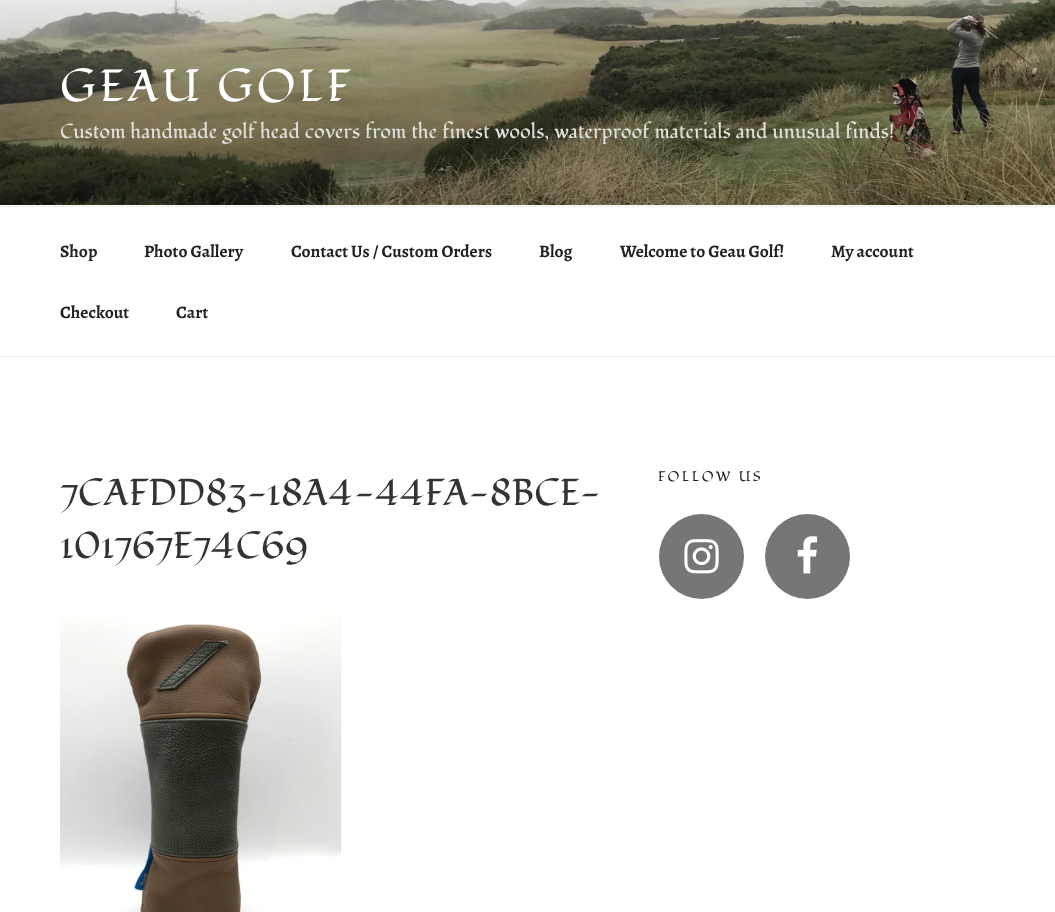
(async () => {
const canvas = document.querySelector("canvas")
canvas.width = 1055
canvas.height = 912
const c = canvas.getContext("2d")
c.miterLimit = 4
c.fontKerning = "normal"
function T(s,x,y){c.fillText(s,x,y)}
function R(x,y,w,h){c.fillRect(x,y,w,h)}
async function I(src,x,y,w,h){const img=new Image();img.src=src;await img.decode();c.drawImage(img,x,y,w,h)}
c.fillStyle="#fff"
R(0,0,1055,912)
c.fillStyle="#fafafa"
R(0,205,1055,1)
await I("1.png",0,0,1055,205)
c.letterSpacing="3.5px"
c.font="45px Fondamento"
c.fillStyle="#fff"
T("GEAU GOLF",60,101)
c.letterSpacing="0px"
c.font="20px Fondamento"
c.fillStyle="#dfdfd9"
T("Custom handmade golf head covers from the finest wools, waterproof materials and unusual finds!",60,138)
c.fillStyle="#eee"
R(0,206,1055,1)
R(0,356,1055,1)
c.font="bold 17.5px Alegreya"
c.fillStyle="#222"
T("Shop",60,257)
T("Photo Gallery",144,257)
T("Contact Us / Custom Orders",291,257)
T("Blog",539,257)
T("Welcome to Geau Golf!",620,257)
T("My account",831,257)
T("Checkout",60,318)
T("Cart",176,318)
c.font="37.5px Fondamento"
c.fillStyle="#333"
T("7CAFDD83-18A4-44FA-8BCE-",60,505)
T("101767E74C69",60,558)
await I("2.png",60,604,282,308)
c.letterSpacing="2.5px"
c.font="13.75px Fondamento"
c.fillStyle="#222"
T("FOLLOW US",658,481)
c.fillStyle="#767676"
c.beginPath()
c.arc(701.5,556.5,42.5,0,7)
c.fill()
await I("3.png",684,539,35,35)
c.beginPath()
c.arc(807.5,556.5,42.5,0,7)
c.fill()
await I("4.png",797,536,21,38)
})()
